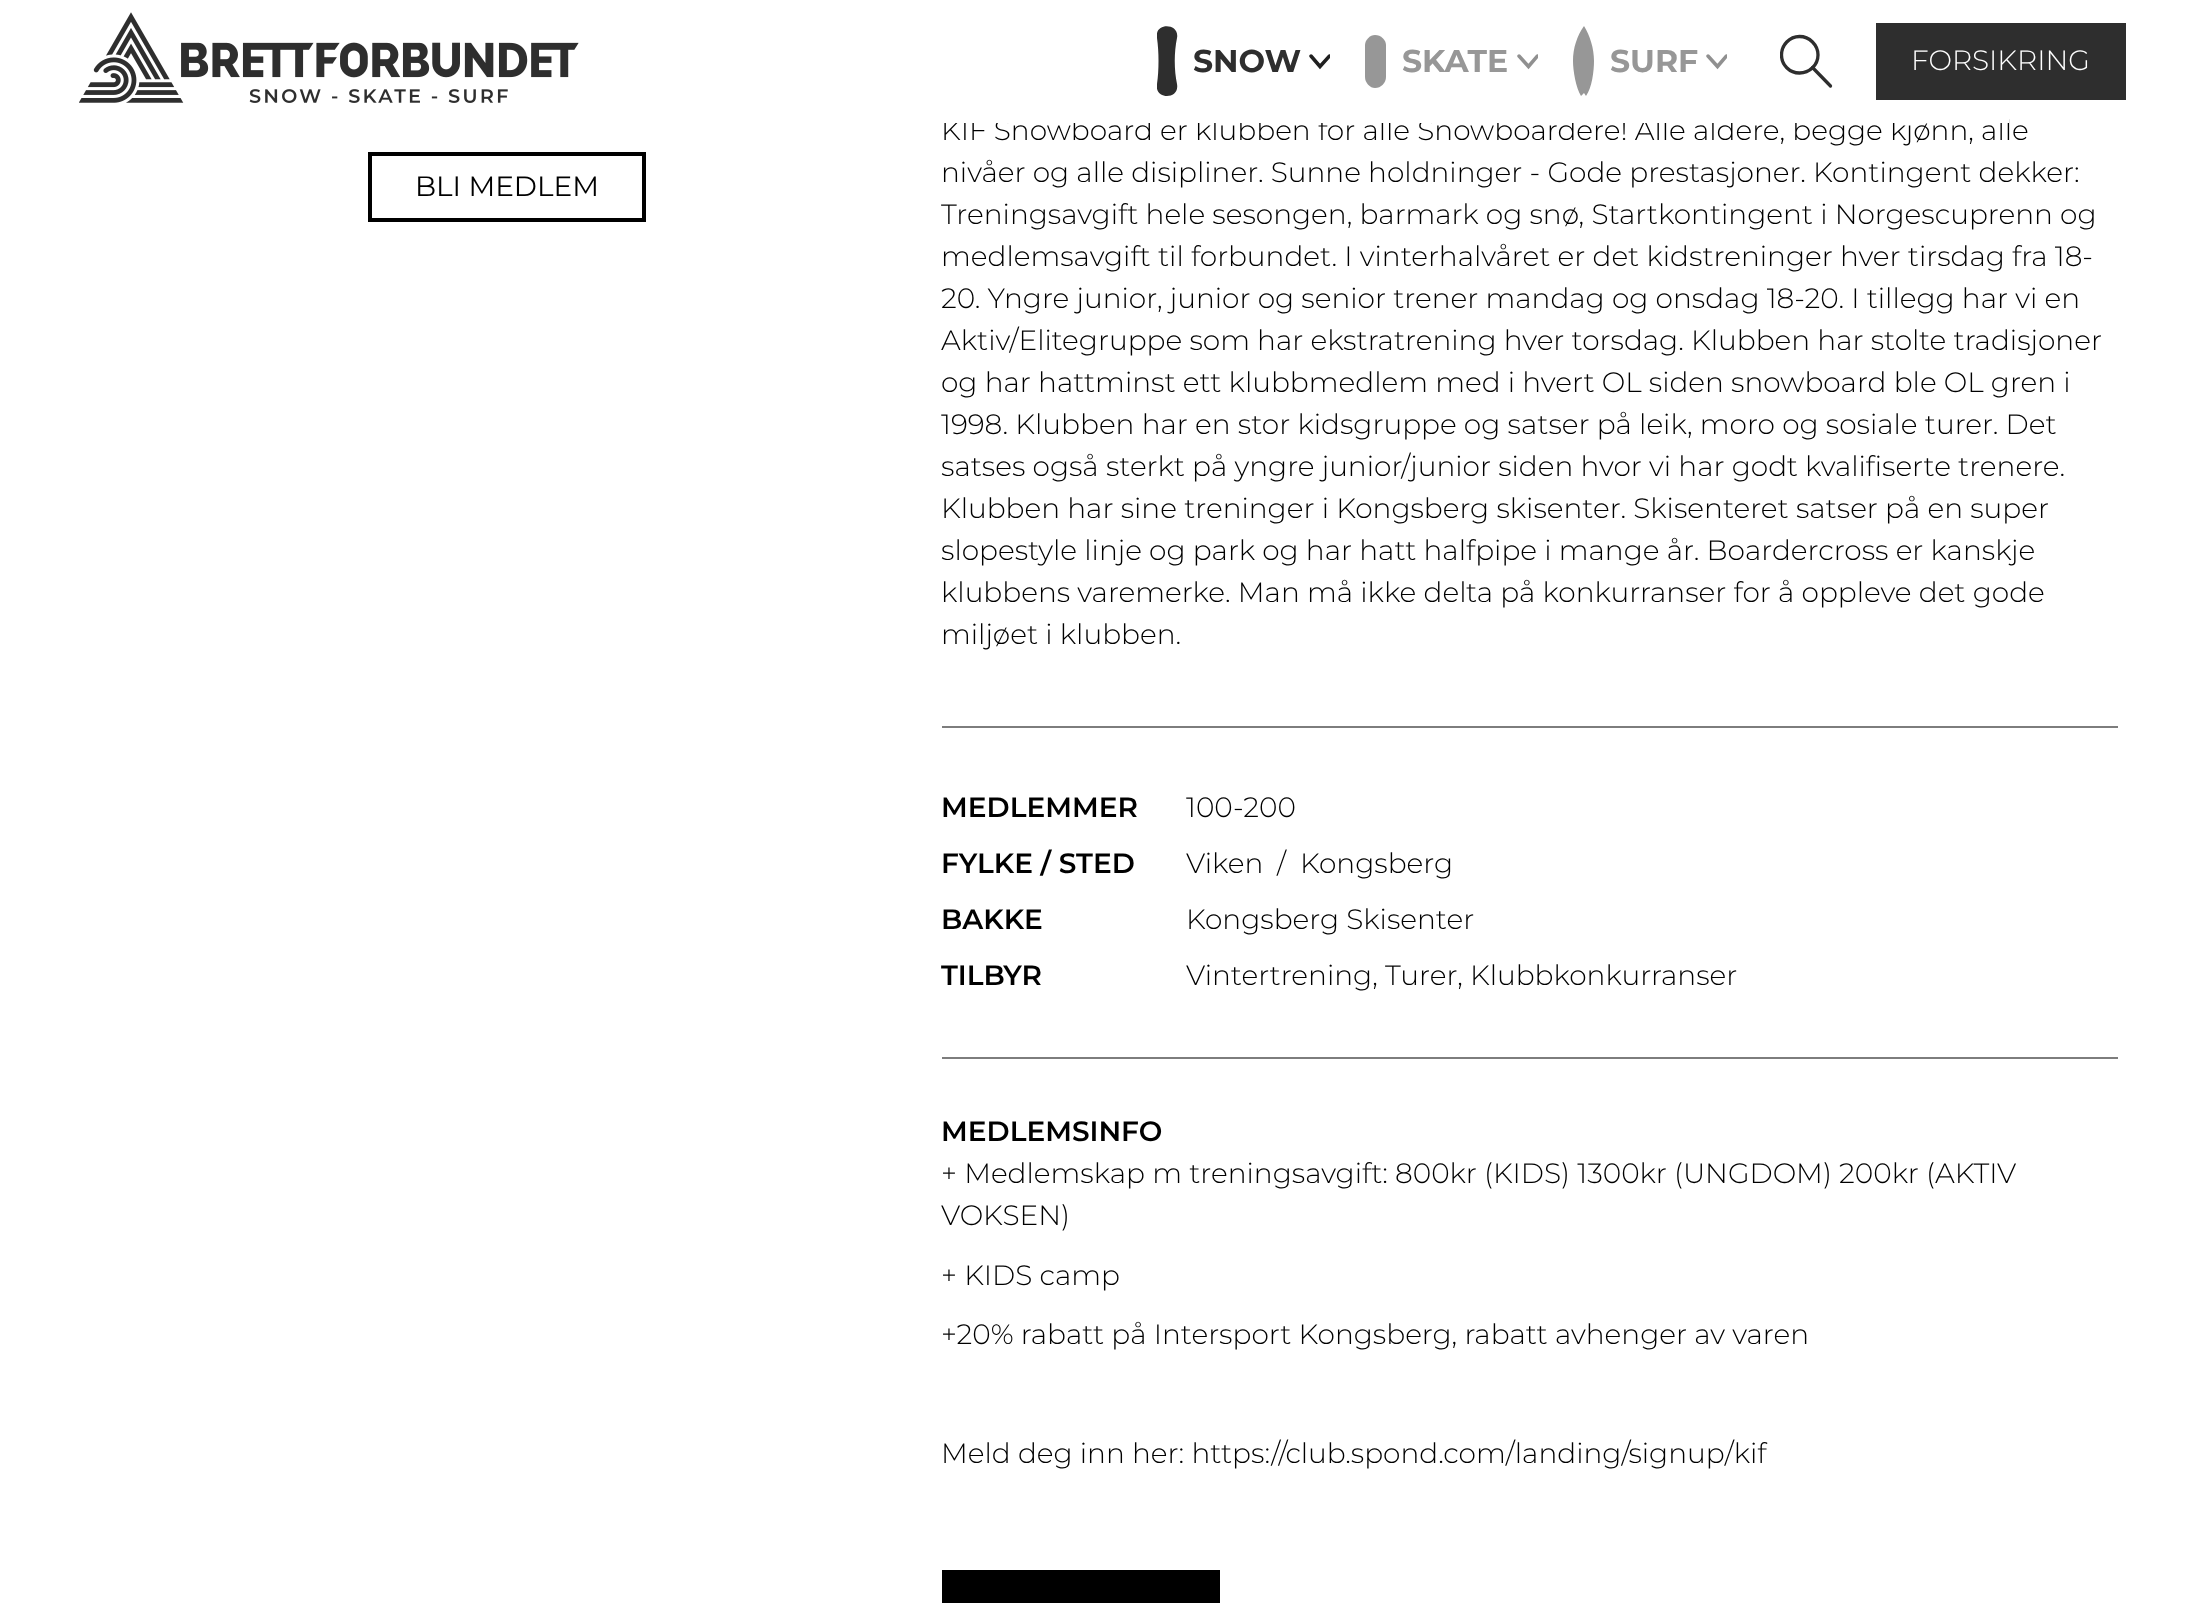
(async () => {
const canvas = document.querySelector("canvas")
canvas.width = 2203
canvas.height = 1603
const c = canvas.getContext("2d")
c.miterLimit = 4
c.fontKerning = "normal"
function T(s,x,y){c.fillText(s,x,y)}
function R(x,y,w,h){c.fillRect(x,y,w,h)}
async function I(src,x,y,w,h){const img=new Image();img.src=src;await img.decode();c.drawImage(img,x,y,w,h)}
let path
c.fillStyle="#fff"
R(0,0,2203,1603)
await I("1.png",79,12,500,91)
c.save()
c.beginPath()
c.rect(1157,26,21,70)
c.clip()
c.fillStyle="#2e2e2e"
path = new Path2D("M1177 84c-3-14-3-32 0-46c3-15-23-16-20 0c2 14 2 32 0 46c-3 16 23 16 20 0z")
c.fill(path,"evenodd")
c.restore()
c.font="bold 31.5px Montserrat"
c.fillStyle="#2e2e2e"
T("SNOW",1193,72)
c.save()
c.beginPath()
c.rect(1309,54,21,16)
c.clip()
path = new Path2D("M1311 56l9 10.5l9.5-10.5")
c.strokeStyle="#202020"
c.lineWidth=3.5
c.lineCap="round"
c.stroke(path)
c.restore()
c.fillStyle="#979797"
path = new Path2D("M1365 45c0-5 5-10 10-10c6 0 11 5 11 10v32c0 6-5 11-11 11c-5 0-10-5-10-11z")
c.fill(path,"evenodd")
T("SKATE",1402,72)
c.save()
c.beginPath()
c.rect(1517,54,21,16)
c.clip()
path = new Path2D("M1519 56l9.5 10.5l9-10.5")
c.strokeStyle="#909090"
c.lineWidth=3.5
c.lineCap="round"
c.stroke(path)
c.restore()
path = new Path2D("M1581 96l3-3l2 3c6-8 8-25 8-35c0-13-4-25-10-35c-7 10-11 22-11 35c0 10 3 27 8 35z")
c.fill(path,"evenodd")
T("SURF",1610,72)
c.save()
c.beginPath()
c.rect(1706,54,21,16)
c.clip()
path = new Path2D("M1708 56l9.5 10.5l9-10.5")
c.strokeStyle="#909090"
c.lineWidth=3.5
c.lineCap="round"
c.stroke(path)
c.restore()
c.save()
c.beginPath()
c.rect(1780,33,52,56)
c.clip()
path = new Path2D("M1818 55c0 10-8.5 18-18.5 18c-10 0-18-8-18-18c0-10 8-18.5 18-18.5c10 0 18.5 8.5 18.5 18.5z")
c.strokeStyle="#2e2e2e"
c.lineWidth=3.3
c.lineCap="round"
c.lineJoin="round"
c.stroke(path)
c.restore()
path = new Path2D("M1812.5 67.5l18 18.5")
c.strokeStyle="#2e2e2e"
c.lineWidth=3.3
c.lineCap="round"
c.lineJoin="round"
c.stroke(path)
c.fillStyle="#2e2e2e"
R(1876,23,250,77)
c.font="300 28px Montserrat"
c.fillStyle="#fff"
T("FORSIKRING",1911,70)
c.fillStyle="#000"
T("KIF Snowboard er klubben for alle Snowboardere! Alle aldere, begge kjønn, alle",941,140)
c.fillStyle="#fff"
R(944,119,1065,4)
c.strokeStyle="#000"
c.lineWidth=4
c.lineJoin="miter"
c.strokeRect(370,154,274,66)
c.font="28px Montserrat"
c.fillStyle="#000"
T("BLI MEDLEM",415,196)
c.font="300 28px Montserrat"
T("nivåer og alle disipliner. Sunne holdninger - Gode prestasjoner. Kontingent dekker:",941,182)
T("Treningsavgift hele sesongen, barmark og snø, Startkontingent i Norgescuprenn og",941,224)
T("medlemsavgift til forbundet. I vinterhalvåret er det kidstreninger hver tirsdag fra 18-",941,266)
T("20. Yngre junior, junior og senior trener mandag og onsdag 18-20. I tillegg har vi en",941,308)
T("Aktiv/Elitegruppe som har ekstratrening hver torsdag. Klubben har stolte tradisjoner",941,350)
T("og har hattminst ett klubbmedlem med i hvert OL siden snowboard ble OL gren i",941,392)
T("1998. Klubben har en stor kidsgruppe og satser på leik, moro og sosiale turer. Det",941,434)
T("satses også sterkt på yngre junior/junior siden hvor vi har godt kvalifiserte trenere.",941,476)
T("Klubben har sine treninger i Kongsberg skisenter. Skisenteret satser på en super",941,518)
T("slopestyle linje og park og har hatt halfpipe i mange år. Boardercross er kanskje",941,560)
T("klubbens varemerke. Man må ikke delta på konkurranser for å oppleve det gode",941,602)
T("miljøet i klubben.",941,644)
c.fillStyle="#7d7d7d"
R(942,726,1176,2)
c.font="600 28px Montserrat"
c.fillStyle="#000"
T("MEDLEMMER",941,817)
c.font="300 28px Montserrat"
T("100-200",1186,817)
c.font="600 28px Montserrat"
T("FYLKE / STED",941,873)
c.font="300 28px Montserrat"
T("Viken",1186,873)
T("/",1277,873)
T("Kongsberg",1300,873)
c.font="600 28px Montserrat"
T("BAKKE",941,929)
c.font="300 28px Montserrat"
T("Kongsberg Skisenter",1186,929)
c.font="600 28px Montserrat"
T("TILBYR",941,985)
c.font="300 28px Montserrat"
T("Vintertrening, Turer, Klubbkonkurranser",1186,985)
c.fillStyle="#7d7d7d"
R(942,1057,1176,2)
c.font="600 28px Montserrat"
c.fillStyle="#000"
T("MEDLEMSINFO",941,1141)
c.font="300 28px Montserrat"
T("+ Medlemskap m treningsavgift: 800kr (KIDS) 1300kr (UNGDOM) 200kr (AKTIV",941,1183)
T("VOKSEN)",941,1225)
T("+ KIDS camp",941,1285)
T("+20% rabatt på Intersport Kongsberg, rabatt avhenger av varen",941,1344)
T("Meld deg inn her: https://club.spond.com/landing/signup/kif",941,1463)
R(942,1570,278,33)
})()
